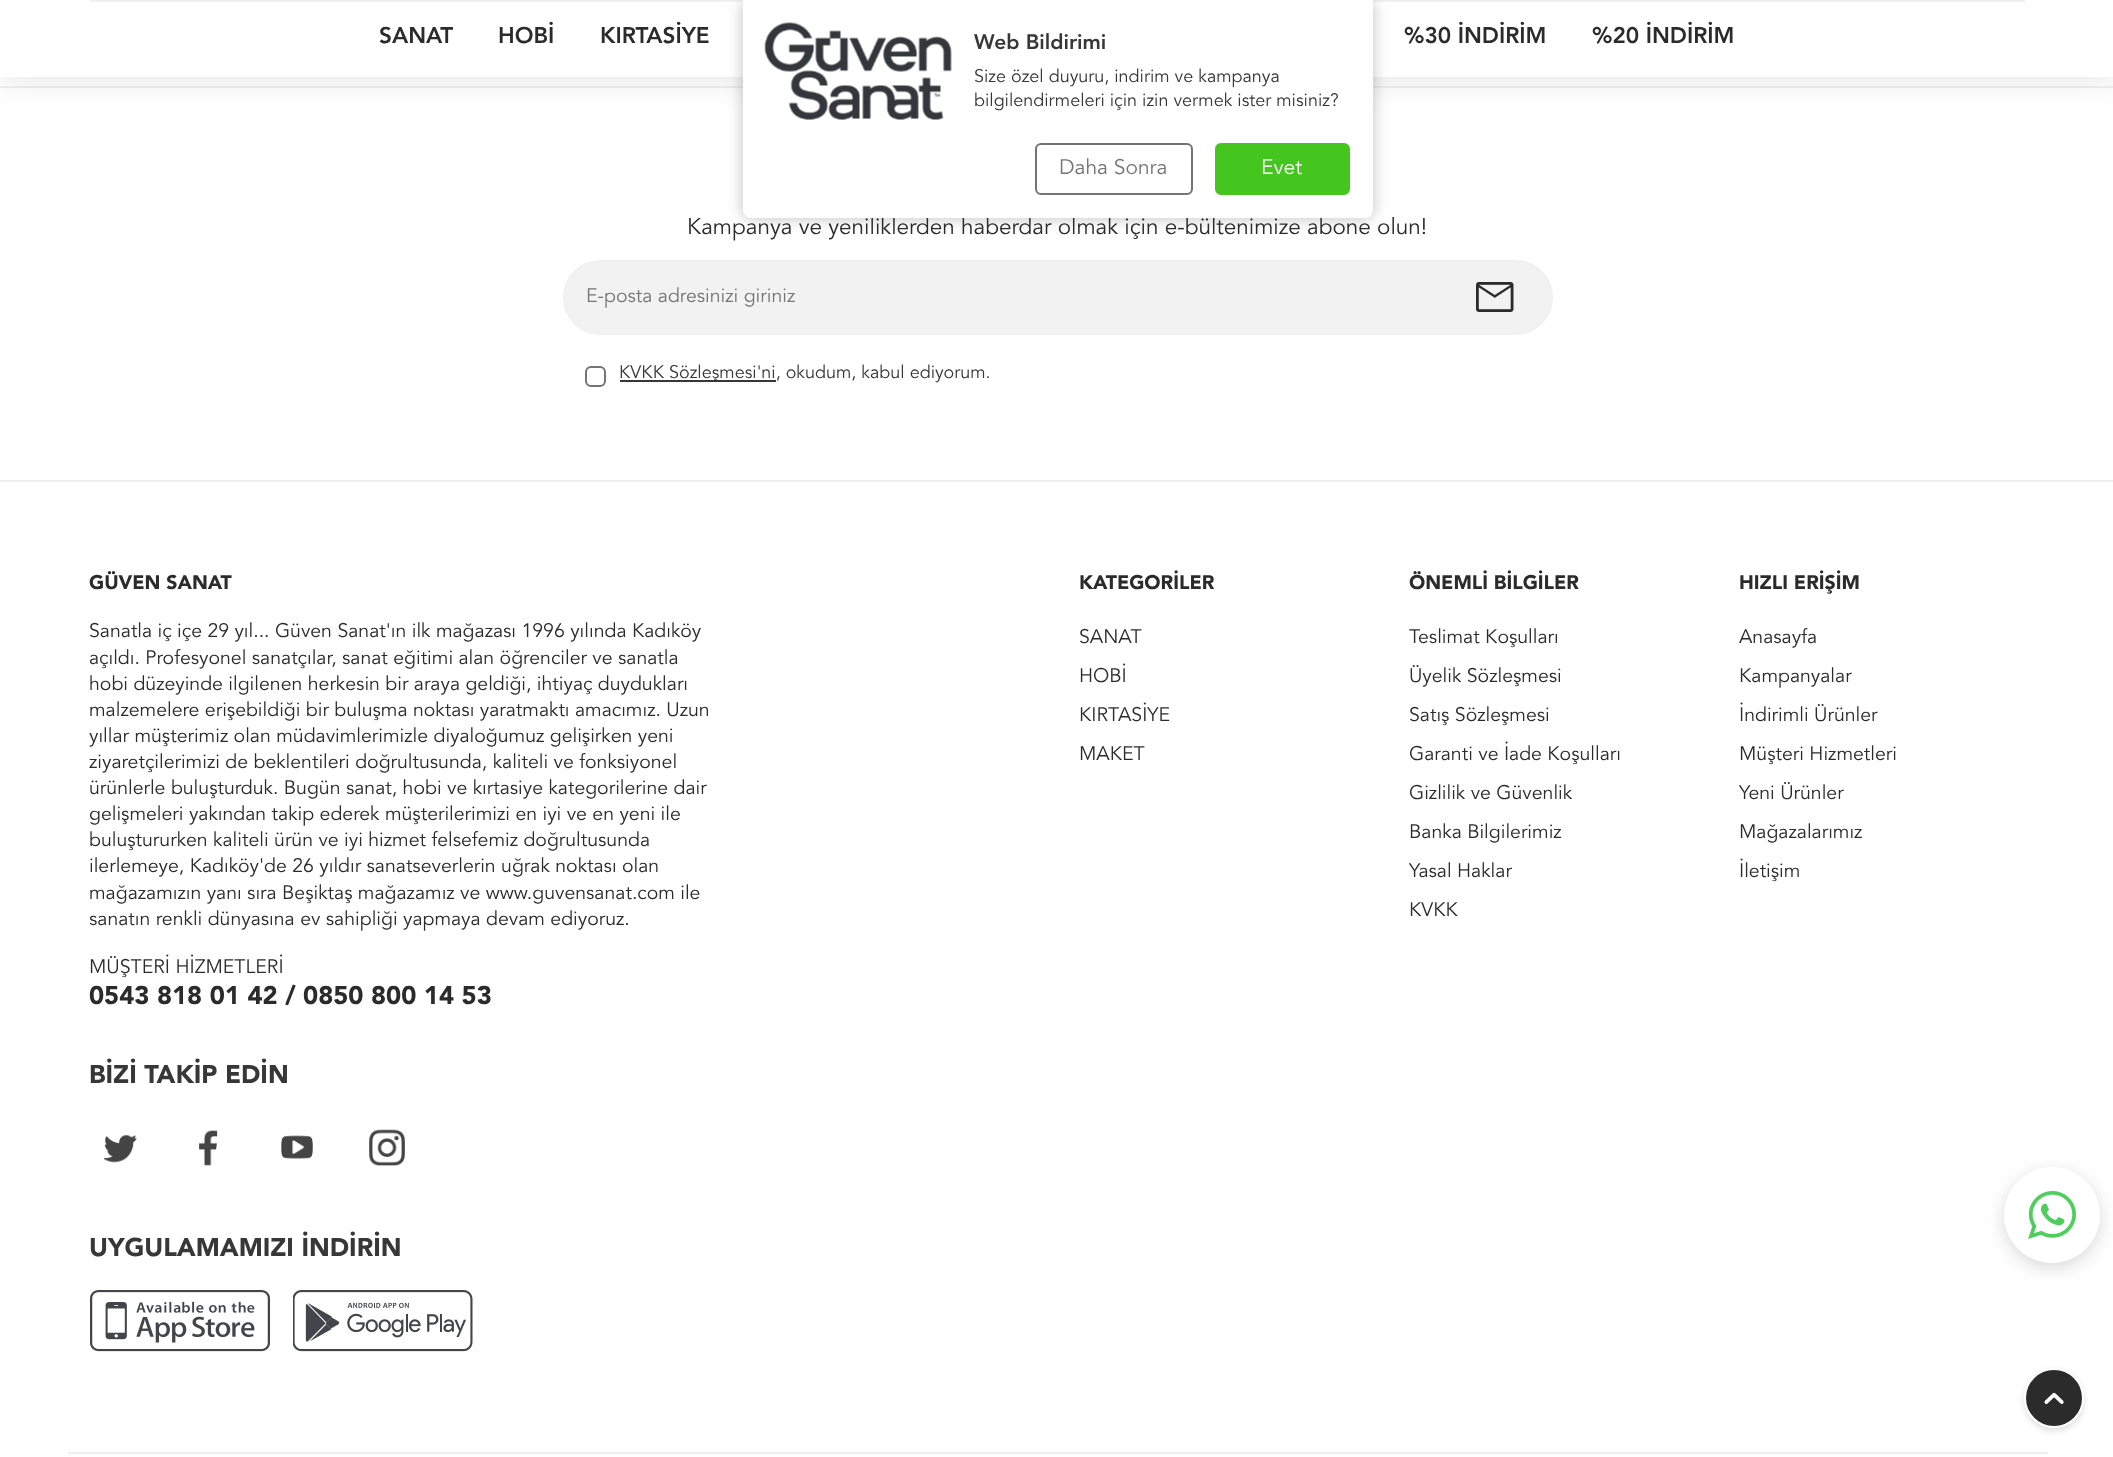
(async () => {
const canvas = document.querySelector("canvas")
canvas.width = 2113
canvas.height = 1457
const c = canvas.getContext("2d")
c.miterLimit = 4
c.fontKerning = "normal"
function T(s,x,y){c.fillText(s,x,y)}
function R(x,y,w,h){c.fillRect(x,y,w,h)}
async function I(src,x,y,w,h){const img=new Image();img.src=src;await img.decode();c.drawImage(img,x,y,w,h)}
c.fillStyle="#fff"
R(0,0,2113,1457)
c.fillStyle="#f0f0f0"
R(0,86,2113,2)
c.fillStyle="#0000001a"
c.filter="blur(15px)"
c.beginPath()
c.rect(0,3,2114,77)
c.fill()
c.filter="none"
c.fillStyle="#fff"
R(0,0,2113,77)
c.fillStyle="#f0f0f0"
R(90,0,1935,2)
c.font="bold 22.5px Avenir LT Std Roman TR"
c.fillStyle="#2b2b2b"
T("SANAT",379,43)
T("HOBİ",498,43)
T("KIRTASİYE",600,43)
T("%30 İNDİRİM",1404,43)
T("%20 İNDİRİM",1592,43)
c.fillStyle="#00000021"
c.filter="blur(3px)"
c.beginPath()
c.roundRect(2024,1371,60,60,30)
c.fill()
c.filter="none"
c.fillStyle="#2b2b2b"
c.beginPath()
c.arc(2054,1398,29,0,7)
c.fill()
c.strokeStyle="#fff"
c.lineWidth=2
c.stroke()
await I("1.png",2044,1392,20,13)
c.fillStyle="#2828284d"
c.filter="blur(7.5px)"
c.beginPath()
c.roundRect(743,0,630,218,8)
c.fill()
c.filter="none"
c.font="22.5px 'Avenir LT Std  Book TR'"
c.fillStyle="#2b2b2b"
T("Kampanya ve yeniliklerden haberdar olmak için e-bültenimize abone olun!",687,234)
c.fillStyle="#fff"
c.beginPath()
c.roundRect(743,0,630,218,[0,0,8,8])
c.fill()
await I("2.png",764,22,188,99)
c.font="bold 21px Avenir LT Std Roman TR"
c.fillStyle="#373738"
T("Web Bildirimi",974,49)
c.font="18px 'Avenir LT Std  Book TR'"
T("Size özel duyuru, indirim ve kampanya",974,82)
T("bilgilendirmeleri için izin vermek ister misiniz?",974,106)
c.beginPath()
c.roundRect(1036,144,156,50,5)
c.strokeStyle="#747474"
c.stroke()
c.font="21px 'Avenir LT Std  Book TR'"
c.fillStyle="#757575"
T("Daha Sonra",1059,174)
c.fillStyle="#44c61f"
c.beginPath()
c.roundRect(1216,144,133,50,5)
c.fill()
c.strokeStyle="#44c61f"
c.stroke()
c.fillStyle="#fff"
T("Evet",1261,174)
c.fillStyle="#f0f0f0"
R(0,480,2113,2)
c.fillStyle="#f2f2f3"
c.beginPath()
c.roundRect(564,261,988,73,36.5)
c.fill()
c.strokeStyle="#f0f0f0"
c.stroke()
c.font="19.5px 'Avenir LT Std  Book TR'"
c.fillStyle="#757575"
T("E-posta adresinizi giriniz",586,302)
await I("3.png",1476,282,38,30)
c.beginPath()
c.roundRect(586,367,19,19,5)
c.strokeStyle="#747474"
c.stroke()
c.fillStyle="#373738"
R(620,380,156,2)
c.font="18px 'Avenir LT Std  Book TR'"
T("KVKK Sözleşmesi'ni, okudum, kabul ediyorum.",619,378)
c.font="bold 19.5px 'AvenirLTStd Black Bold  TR'"
c.fillStyle="#2b2b2b"
T("GÜVEN SANAT",89,589)
c.font="19.5px 'Avenir LT Std  Book TR'"
T("Sanatla iç içe 29 yıl... Güven Sanat'ın ilk mağazası 1996 yılında Kadıköy",89,637)
T("açıldı. Profesyonel sanatçılar, sanat eğitimi alan öğrenciler ve sanatla",89,664)
T("hobi düzeyinde ilgilenen herkesin bir araya geldiği, ihtiyaç duydukları",89,690)
T("malzemelere erişebildiği bir buluşma noktası yaratmaktı amacımız. Uzun",89,716)
T("yıllar müşterimiz olan müdavimlerimizle diyaloğumuz gelişirken yeni",89,742)
T("ziyaretçilerimizi de beklentileri doğrultusunda, kaliteli ve fonksiyonel",89,768)
T("ürünlerle buluşturduk. Bugün sanat, hobi ve kırtasiye kategorilerine dair",89,794)
T("gelişmeleri yakından takip ederek müşterilerimizi en iyi ve en yeni ile",89,820)
T("buluştururken kaliteli ürün ve iyi hizmet felsefemiz doğrultusunda",89,846)
T("ilerlemeye, Kadıköy'de 26 yıldır sanatseverlerin uğrak noktası olan",89,872)
T("mağazamızın yanı sıra Beşiktaş mağazamız ve www.guvensanat.com ile",89,899)
T("sanatın renkli dünyasına ev sahipliği yapmaya devam ediyoruz.",89,925)
T("MÜŞTERİ HİZMETLERİ",89,973)
c.font="bold 25.5px 'AvenirLTStd Black Bold  TR'"
T("0543 818 01 42 / 0850 800 14 53",89,1004)
c.fillStyle="#373738"
T("BİZİ TAKİP EDİN",89,1083)
await I("4.png",103,1134,34,29)
await I("5.png",199,1130,19,36)
await I("6.png",281,1135,32,24)
await I("7.png",369,1129,36,37)
T("UYGULAMAMIZI İNDİRİN",89,1256)
await I("8.png",90,1290,180,62)
await I("9.png",293,1290,180,62)
c.font="bold 19.5px 'AvenirLTStd Black Bold  TR'"
c.fillStyle="#2b2b2b"
T("KATEGORİLER",1079,589)
c.font="19.5px 'Avenir LT Std  Book TR'"
T("SANAT",1079,643)
T("HOBİ",1079,682)
T("KIRTASİYE",1079,721)
T("MAKET",1079,760)
c.font="bold 19.5px 'AvenirLTStd Black Bold  TR'"
T("ÖNEMLİ BİLGİLER",1409,589)
c.font="19.5px 'Avenir LT Std  Book TR'"
T("Teslimat Koşulları",1409,643)
T("Üyelik Sözleşmesi",1409,682)
T("Satış Sözleşmesi",1409,721)
T("Garanti ve İade Koşulları",1409,760)
T("Gizlilik ve Güvenlik",1409,799)
T("Banka Bilgilerimiz",1409,838)
T("Yasal Haklar",1409,877)
T("KVKK",1409,916)
c.font="bold 19.5px 'AvenirLTStd Black Bold  TR'"
T("HIZLI ERİŞİM",1739,589)
c.font="19.5px 'Avenir LT Std  Book TR'"
T("Anasayfa",1739,643)
T("Kampanyalar",1739,682)
T("İndirimli Ürünler",1739,721)
T("Müşteri Hizmetleri",1739,760)
T("Yeni Ürünler",1739,799)
T("Mağazalarımız",1739,838)
T("İletişim",1739,877)
c.fillStyle="#f0f0f0"
R(68,1452,1980,2)
c.fillStyle="#00000026"
c.filter="blur(9px)"
c.beginPath()
c.roundRect(2004,1172,96,96,48)
c.fill()
c.filter="none"
c.fillStyle="#fff"
c.beginPath()
c.arc(2052,1215,48,0,7)
c.fill()
await I("10.png",2028,1191,48,48)
})()
